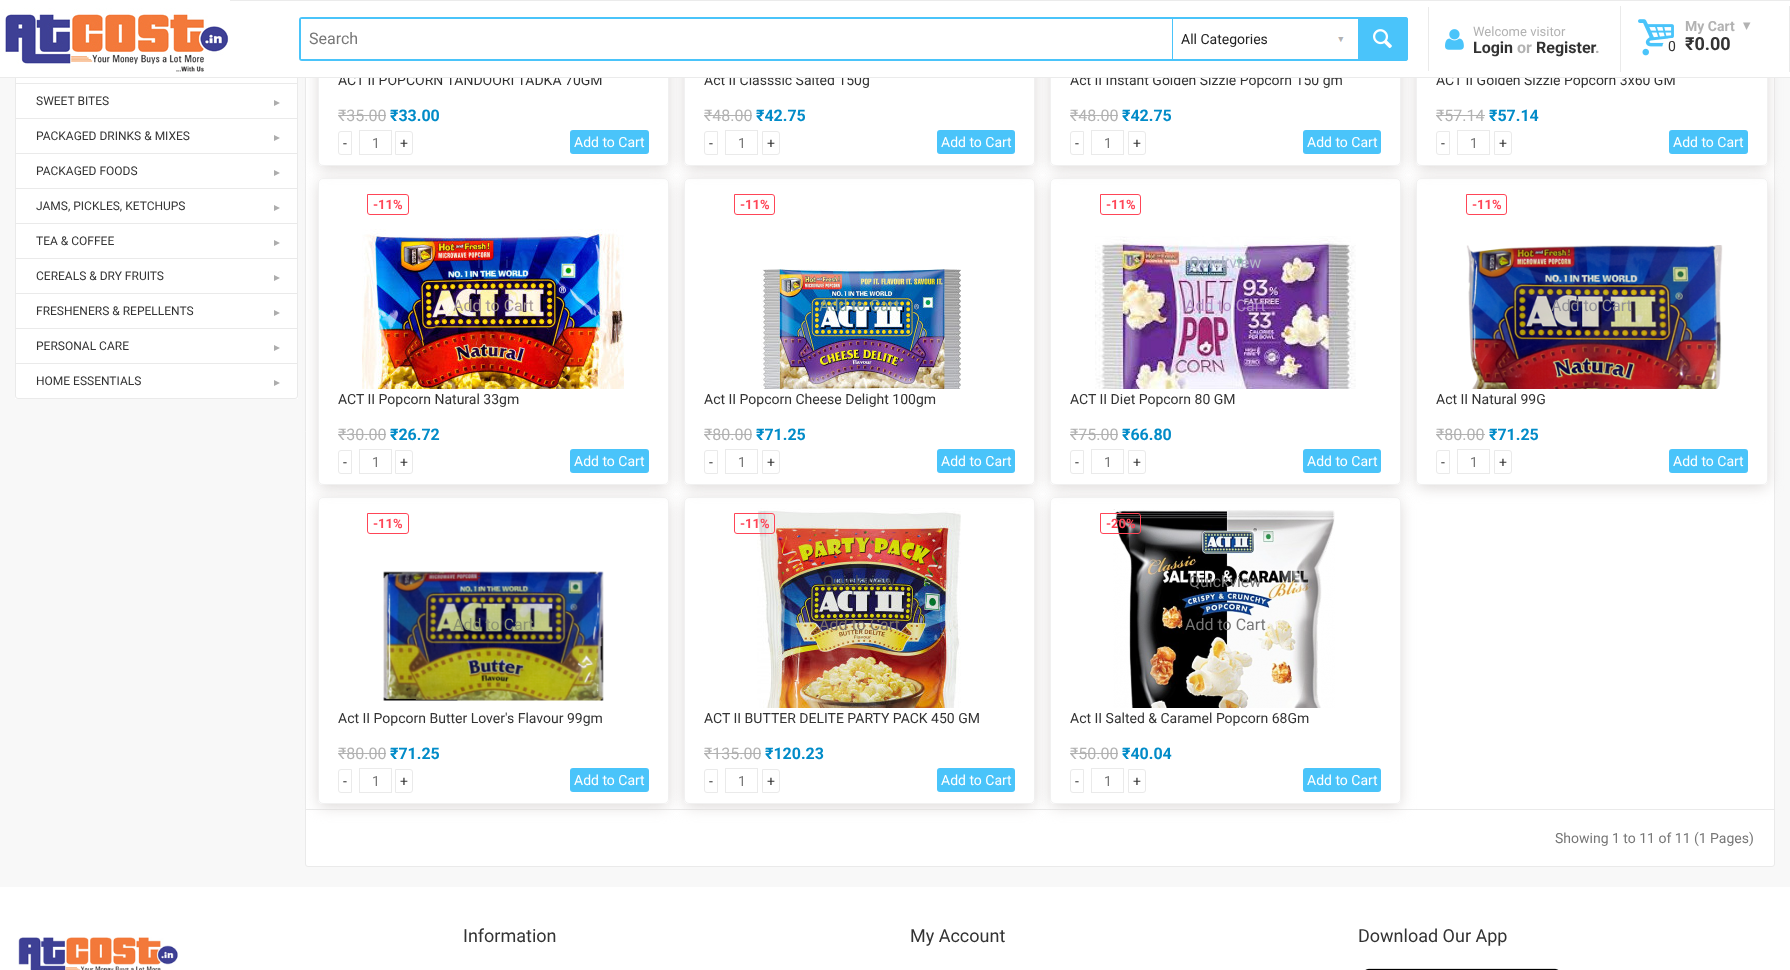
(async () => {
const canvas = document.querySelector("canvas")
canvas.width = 1790
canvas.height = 970
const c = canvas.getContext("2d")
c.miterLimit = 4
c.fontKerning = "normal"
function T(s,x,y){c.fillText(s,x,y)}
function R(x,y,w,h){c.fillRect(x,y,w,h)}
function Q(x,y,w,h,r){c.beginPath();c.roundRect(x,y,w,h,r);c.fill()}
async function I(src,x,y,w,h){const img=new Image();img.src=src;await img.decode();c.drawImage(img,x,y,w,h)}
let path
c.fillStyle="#f8f8f8"
R(0,0,1790,970)
c.fillStyle="#fff"
R(15,78,283,321)
c.strokeStyle="#eaeaea"
c.strokeRect(15.5,48.5,282,35)
c.beginPath()
c.roundRect(305.5,-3.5,1469,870,2.5)
c.fill()
c.stroke()
c.strokeRect(15.5,83.5,282,35)
c.strokeRect(15.5,118.5,282,35)
c.strokeRect(15.5,153.5,282,35)
c.strokeRect(15.5,188.5,282,35)
c.save()
path = new Path2D("M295 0h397v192h-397zm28-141h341c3 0 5 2 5 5v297c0 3-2 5-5 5h-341c-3 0-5-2-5-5v-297c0-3 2-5 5-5z")
c.clip(path,"evenodd")
c.fillStyle="#dad6d5"
c.filter="blur(7.5px)"
c.beginPath()
c.roundRect(319,-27,349,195,4)
c.fill()
c.filter="none"
c.restore()
c.beginPath()
c.roundRect(318.5,-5.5,350,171,4.5)
c.strokeStyle="#f1f1f1"
c.stroke()
c.font="14px Roboto"
c.fillStyle="#333"
T("ACT II POPCORN TANDOORI TADKA 70GM",338,85)
c.save()
path = new Path2D("M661 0h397v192h-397zm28-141h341c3 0 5 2 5 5v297c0 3-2 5-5 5h-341c-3 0-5-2-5-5v-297c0-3 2-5 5-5z")
c.clip(path,"evenodd")
c.fillStyle="#dad6d5"
c.filter="blur(7.5px)"
c.beginPath()
c.roundRect(685,-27,349,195,4)
c.fill()
c.filter="none"
c.restore()
c.beginPath()
c.roundRect(684.5,-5.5,350,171,4.5)
c.stroke()
T("Act II Classsic Salted 150g",704,85)
c.save()
path = new Path2D("M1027 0h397v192h-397zm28-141h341c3 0 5 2 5 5v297c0 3-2 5-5 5h-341c-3 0-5-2-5-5v-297c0-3 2-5 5-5z")
c.clip(path,"evenodd")
c.fillStyle="#dad6d5"
c.filter="blur(7.5px)"
c.beginPath()
c.roundRect(1051,-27,349,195,4)
c.fill()
c.filter="none"
c.restore()
c.beginPath()
c.roundRect(1050.5,-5.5,350,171,4.5)
c.stroke()
T("Act II Instant Golden Sizzle Popcorn 150 gm",1070,85)
c.save()
path = new Path2D("M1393 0h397v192h-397zm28-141h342c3 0 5 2 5 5v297c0 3-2 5-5 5h-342c-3 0-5-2-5-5v-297c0-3 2-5 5-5z")
c.clip(path,"evenodd")
c.fillStyle="#dad6d5"
c.filter="blur(7.5px)"
c.beginPath()
c.roundRect(1417,-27,350,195,4)
c.fill()
c.filter="none"
c.restore()
c.beginPath()
c.roundRect(1416.5,-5.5,351,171,4.5)
c.stroke()
T("ACT II Golden Sizzle Popcorn 3x60 GM",1436,85)
c.fillStyle="#fff"
R(0,1,1790,76)
c.fillStyle="#ebebeb"
R(230,0,1560,1)
await I("1.png",0,0,230,72)
c.beginPath()
c.roundRect(300,18,1107,42,2)
c.strokeStyle="#4ac4fa"
c.lineWidth=2
c.stroke()
c.fillStyle="#fff"
R(301,19,1,40)
c.font="16px Roboto"
c.fillStyle="#777"
T("Search",309,44)
await I("2.png",1338,37,6,5)
c.fillStyle="#4ac4fa"
R(1172,19,1,40)
c.font="14px Roboto"
c.fillStyle="#222"
T("All Categories",1181,44)
c.fillStyle="#4ac4fa"
c.beginPath()
c.roundRect(1358,17,50,44,[0,3,3,0])
c.fill()
await I("3.png",1373,29,19,20)
c.fillStyle="#eaeaea"
R(1428,7,1,64)
await I("4.png",1445,29,19,21)
c.font="13px Roboto"
c.fillStyle="#b2b2b2"
T("Welcome visitor",1473,36)
c.font="bold 16px Roboto"
c.fillStyle="#333"
T("Login",1473,53)
c.fillStyle="#b2b2b2"
T("or",1517,53)
c.fillStyle="#333"
T("Register",1536,53)
c.fillStyle="#b2b2b2"
T(".",1595,53)
c.fillStyle="#eaeaea"
R(1789,6,1,66)
R(1620,6,1,66)
await I("5.png",1638,19,36,37)
c.font="bold 14px Roboto"
c.fillStyle="#b2b2b2"
T("My Cart",1685,31)
path = new Path2D("M1746.5 30l-3.5-7.5h7.5z")
c.fill(path)
c.fillStyle="#fff"
c.beginPath()
c.arc(1672,48,10,0,7)
c.fill()
c.font="14px Roboto"
c.fillStyle="#333"
T("0",1668,51)
c.font="bold 18px Roboto"
T("₹0.00",1685,50)
c.fillStyle="#ebebeb"
R(0,77,1790,1)
c.font="12px Roboto"
c.fillStyle="#333"
T("SWEET BITES",36,105)
c.fillStyle="#adadad"
path = new Path2D("M280 103l-6 3v-6z")
c.fill(path)
c.fillStyle="#333"
T("PACKAGED DRINKS & MIXES",36,140)
c.fillStyle="#adadad"
path = new Path2D("M280 138l-6 3v-6z")
c.fill(path)
c.fillStyle="#333"
T("PACKAGED FOODS",36,175)
c.fillStyle="#adadad"
path = new Path2D("M280 173l-6 3v-6z")
c.fill(path)
c.fillStyle="#333"
T("JAMS, PICKLES, KETCHUPS",36,210)
c.fillStyle="#adadad"
path = new Path2D("M280 208l-6 3v-6z")
c.fill(path)
c.strokeStyle="#eaeaea"
c.lineWidth=1
c.strokeRect(15.5,223.5,282,35)
c.fillStyle="#333"
T("TEA & COFFEE",36,245)
c.fillStyle="#adadad"
path = new Path2D("M280 243l-6 3v-6z")
c.fill(path)
c.strokeRect(15.5,258.5,282,35)
c.fillStyle="#333"
T("CEREALS & DRY FRUITS",36,280)
c.fillStyle="#adadad"
path = new Path2D("M280 278l-6 3v-6z")
c.fill(path)
c.strokeRect(15.5,293.5,282,35)
c.fillStyle="#333"
T("FRESHENERS & REPELLENTS",36,315)
c.fillStyle="#adadad"
path = new Path2D("M280 313l-6 3v-6z")
c.fill(path)
c.strokeRect(15.5,328.5,282,35)
c.fillStyle="#333"
T("PERSONAL CARE",36,350)
c.fillStyle="#adadad"
path = new Path2D("M280 348l-6 3v-6z")
c.fill(path)
c.beginPath()
c.roundRect(15.5,363.5,282,35,[0,0,2.5,2.5])
c.stroke()
c.fillStyle="#333"
T("HOME ESSENTIALS",36,385)
c.fillStyle="#adadad"
path = new Path2D("M280 383l-6 3v-6z")
c.fill(path)
c.font="16px Roboto"
c.fillStyle="#b2b2b2"
T("₹35.00",338,121)
R(338,115,48,1)
c.font="bold 16px Roboto"
c.fillStyle="#018bc8"
T("₹33.00",390,121)
c.beginPath()
c.roundRect(338.5,131.5,13,23,[2.5,0,0,2.5])
c.stroke()
c.font="14px Roboto"
c.fillStyle="#333"
T("-",343,148)
c.strokeRect(359.5,130.5,32,24)
c.fillStyle="#777"
T("1",372,148)
c.beginPath()
c.roundRect(395.5,131.5,17,23,[0,2.5,2.5,0])
c.stroke()
c.fillStyle="#333"
T("+",400,148)
c.fillStyle="#4ac4fa"
Q(570,130,79,24,3)
c.fillStyle="#fff"
T("Add to Cart",574,147)
c.font="16px Roboto"
c.fillStyle="#b2b2b2"
T("₹48.00",704,121)
R(704,115,48,1)
c.font="bold 16px Roboto"
c.fillStyle="#018bc8"
T("₹42.75",756,121)
c.beginPath()
c.roundRect(704.5,131.5,13,23,[2.5,0,0,2.5])
c.stroke()
c.font="14px Roboto"
c.fillStyle="#333"
T("-",709,148)
c.strokeRect(725.5,130.5,32,24)
c.fillStyle="#777"
T("1",738,148)
c.beginPath()
c.roundRect(762.5,131.5,17,23,[0,2.5,2.5,0])
c.stroke()
c.fillStyle="#333"
T("+",767,148)
c.fillStyle="#4ac4fa"
Q(937,130,78,24,3)
c.fillStyle="#fff"
T("Add to Cart",941,147)
c.font="16px Roboto"
c.fillStyle="#b2b2b2"
T("₹48.00",1070,121)
R(1070,115,48,1)
c.font="bold 16px Roboto"
c.fillStyle="#018bc8"
T("₹42.75",1122,121)
c.beginPath()
c.roundRect(1070.5,131.5,13,23,[2.5,0,0,2.5])
c.stroke()
c.font="14px Roboto"
c.fillStyle="#333"
T("-",1075,148)
c.strokeRect(1091.5,130.5,32,24)
c.fillStyle="#777"
T("1",1104,148)
c.beginPath()
c.roundRect(1128.5,131.5,17,23,[0,2.5,2.5,0])
c.stroke()
c.fillStyle="#333"
T("+",1133,148)
c.fillStyle="#4ac4fa"
Q(1303,130,78,24,3)
c.fillStyle="#fff"
T("Add to Cart",1307,147)
c.font="16px Roboto"
c.fillStyle="#b2b2b2"
T("₹57.14",1436,121)
R(1436,115,49,1)
c.font="bold 16px Roboto"
c.fillStyle="#018bc8"
T("₹57.14",1489,121)
c.beginPath()
c.roundRect(1436.5,131.5,13,23,[2.5,0,0,2.5])
c.stroke()
c.font="14px Roboto"
c.fillStyle="#333"
T("-",1441,148)
c.strokeRect(1457.5,130.5,32,24)
c.fillStyle="#777"
T("1",1470,148)
c.beginPath()
c.roundRect(1494.5,131.5,17,23,[0,2.5,2.5,0])
c.stroke()
c.fillStyle="#333"
T("+",1499,148)
c.fillStyle="#4ac4fa"
Q(1669,130,79,24,3)
c.fillStyle="#fff"
T("Add to Cart",1673,147)
c.save()
path = new Path2D("M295 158h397v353h-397zm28 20h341c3 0 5 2 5 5v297c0 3-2 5-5 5h-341c-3 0-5-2-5-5v-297c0-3 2-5 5-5z")
c.clip(path,"evenodd")
c.fillStyle="#dad6d5"
c.filter="blur(7.5px)"
c.beginPath()
c.roundRect(319,182,349,305,4)
c.fill()
c.filter="none"
c.restore()
c.beginPath()
c.roundRect(318.5,178.5,350,306,4.5)
c.strokeStyle="#f1f1f1"
c.stroke()
c.beginPath()
c.roundRect(367.5,194.5,41,20,[0,2.5,2.5,2.5])
c.strokeStyle="#ff4557"
c.stroke()
c.font="bold 13px Roboto"
c.fillStyle="#ff4557"
T("-11%",373,209)
await I("6.png",362,229,262,160)
c.font="16px Roboto"
c.fillStyle="#1d2c90"
T("i",477,268)
T("i",505,268)
c.fillStyle="#a59795"
T("Add to Cart",453,311)
c.font="14px Roboto"
c.fillStyle="#333"
T("ACT II Popcorn Natural 33gm",338,404)
c.font="16px Roboto"
c.fillStyle="#b2b2b2"
T("₹30.00",338,440)
R(338,434,48,1)
c.font="bold 16px Roboto"
c.fillStyle="#018bc8"
T("₹26.72",390,440)
c.beginPath()
c.roundRect(338.5,450.5,13,23,[2.5,0,0,2.5])
c.strokeStyle="#eaeaea"
c.stroke()
c.font="14px Roboto"
c.fillStyle="#333"
T("-",343,467)
c.strokeRect(359.5,449.5,32,24)
c.fillStyle="#777"
T("1",372,467)
c.beginPath()
c.roundRect(395.5,450.5,17,23,[0,2.5,2.5,0])
c.stroke()
c.fillStyle="#333"
T("+",400,467)
c.fillStyle="#4ac4fa"
Q(570,449,79,24,3)
c.fillStyle="#fff"
T("Add to Cart",574,466)
c.save()
path = new Path2D("M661 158h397v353h-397zm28 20h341c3 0 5 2 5 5v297c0 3-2 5-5 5h-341c-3 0-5-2-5-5v-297c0-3 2-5 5-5z")
c.clip(path,"evenodd")
c.fillStyle="#dad6d5"
c.filter="blur(7.5px)"
c.beginPath()
c.roundRect(685,182,349,305,4)
c.fill()
c.filter="none"
c.restore()
c.beginPath()
c.roundRect(684.5,178.5,350,306,4.5)
c.strokeStyle="#f1f1f1"
c.stroke()
c.beginPath()
c.roundRect(734.5,194.5,40,20,[0,2.5,2.5,2.5])
c.strokeStyle="#ff4557"
c.stroke()
c.font="bold 13px Roboto"
c.fillStyle="#ff4557"
T("-11%",740,209)
await I("7.png",761,269,200,120)
c.font="16px Roboto"
c.fillStyle="#89a39a"
T("Add to Cart",819,311)
c.font="14px Roboto"
c.fillStyle="#333"
T("Act II Popcorn Cheese Delight 100gm",704,404)
c.font="16px Roboto"
c.fillStyle="#b2b2b2"
T("₹80.00",704,440)
R(704,434,48,1)
c.font="bold 16px Roboto"
c.fillStyle="#018bc8"
T("₹71.25",756,440)
c.beginPath()
c.roundRect(704.5,450.5,13,23,[2.5,0,0,2.5])
c.strokeStyle="#eaeaea"
c.stroke()
c.font="14px Roboto"
c.fillStyle="#333"
T("-",709,467)
c.strokeRect(725.5,449.5,32,24)
c.fillStyle="#777"
T("1",738,467)
c.beginPath()
c.roundRect(762.5,450.5,17,23,[0,2.5,2.5,0])
c.stroke()
c.fillStyle="#333"
T("+",767,467)
c.fillStyle="#4ac4fa"
Q(937,449,78,24,3)
c.fillStyle="#fff"
T("Add to Cart",941,466)
c.save()
path = new Path2D("M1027 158h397v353h-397zm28 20h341c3 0 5 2 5 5v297c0 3-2 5-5 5h-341c-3 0-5-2-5-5v-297c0-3 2-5 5-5z")
c.clip(path,"evenodd")
c.fillStyle="#dad6d5"
c.filter="blur(7.5px)"
c.beginPath()
c.roundRect(1051,182,349,305,4)
c.fill()
c.filter="none"
c.restore()
c.beginPath()
c.roundRect(1050.5,178.5,350,306,4.5)
c.strokeStyle="#f1f1f1"
c.stroke()
c.beginPath()
c.roundRect(1100.5,194.5,40,20,[0,2.5,2.5,2.5])
c.strokeStyle="#ff4557"
c.stroke()
c.font="bold 13px Roboto"
c.fillStyle="#ff4557"
T("-11%",1106,209)
await I("8.png",1095,236,261,153)
c.font="16px Roboto"
c.fillStyle="#b3b5cb"
T("Quickview",1189,268)
c.fillStyle="#b290c6"
T("Add to Cart",1185,311)
c.font="14px Roboto"
c.fillStyle="#333"
T("ACT II Diet Popcorn 80 GM",1070,404)
c.font="16px Roboto"
c.fillStyle="#b2b2b2"
T("₹75.00",1070,440)
R(1070,434,48,1)
c.font="bold 16px Roboto"
c.fillStyle="#018bc8"
T("₹66.80",1122,440)
c.beginPath()
c.roundRect(1070.5,450.5,13,23,[2.5,0,0,2.5])
c.strokeStyle="#eaeaea"
c.stroke()
c.font="14px Roboto"
c.fillStyle="#333"
T("-",1075,467)
c.strokeRect(1091.5,449.5,32,24)
c.fillStyle="#777"
T("1",1104,467)
c.beginPath()
c.roundRect(1128.5,450.5,17,23,[0,2.5,2.5,0])
c.stroke()
c.fillStyle="#333"
T("+",1133,467)
c.fillStyle="#4ac4fa"
Q(1303,449,78,24,3)
c.fillStyle="#fff"
T("Add to Cart",1307,466)
c.save()
path = new Path2D("M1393 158h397v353h-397zm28 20h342c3 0 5 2 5 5v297c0 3-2 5-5 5h-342c-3 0-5-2-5-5v-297c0-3 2-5 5-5z")
c.clip(path,"evenodd")
c.fillStyle="#dad6d5"
c.filter="blur(7.5px)"
c.beginPath()
c.roundRect(1417,182,350,305,4)
c.fill()
c.filter="none"
c.restore()
c.beginPath()
c.roundRect(1416.5,178.5,351,306,4.5)
c.strokeStyle="#f1f1f1"
c.stroke()
c.beginPath()
c.roundRect(1466.5,194.5,40,20,[0,2.5,2.5,2.5])
c.strokeStyle="#ff4557"
c.stroke()
c.font="bold 13px Roboto"
c.fillStyle="#ff4557"
T("-11%",1472,209)
await I("9.png",1466,245,257,144)
c.font="16px Roboto"
c.fillStyle="#929197"
T("Add to Cart",1551,311)
c.font="14px Roboto"
c.fillStyle="#333"
T("Act II Natural 99G",1436,404)
c.font="16px Roboto"
c.fillStyle="#b2b2b2"
T("₹80.00",1436,440)
R(1436,434,49,1)
c.font="bold 16px Roboto"
c.fillStyle="#018bc8"
T("₹71.25",1489,440)
c.beginPath()
c.roundRect(1436.5,450.5,13,23,[2.5,0,0,2.5])
c.strokeStyle="#eaeaea"
c.stroke()
c.font="14px Roboto"
c.fillStyle="#333"
T("-",1441,467)
c.strokeRect(1457.5,449.5,32,24)
c.fillStyle="#777"
T("1",1470,467)
c.beginPath()
c.roundRect(1494.5,450.5,17,23,[0,2.5,2.5,0])
c.stroke()
c.fillStyle="#333"
T("+",1499,467)
c.fillStyle="#4ac4fa"
Q(1669,449,79,24,3)
c.fillStyle="#fff"
T("Add to Cart",1673,466)
c.fillStyle="#eaeaea"
R(306,809,1468,1)
c.save()
path = new Path2D("M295 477h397v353h-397zm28 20h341c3 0 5 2 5 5v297c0 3-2 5-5 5h-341c-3 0-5-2-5-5v-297c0-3 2-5 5-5z")
c.clip(path,"evenodd")
c.fillStyle="#dad6d5"
c.filter="blur(7.5px)"
c.beginPath()
c.roundRect(319,501,349,305,4)
c.fill()
c.filter="none"
c.restore()
c.beginPath()
c.roundRect(318.5,497.5,350,306,4.5)
c.strokeStyle="#f1f1f1"
c.stroke()
c.beginPath()
c.roundRect(367.5,513.5,41,20,[0,2.5,2.5,2.5])
c.strokeStyle="#ff4557"
c.stroke()
c.font="bold 13px Roboto"
c.fillStyle="#ff4557"
T("-11%",373,528)
await I("10.png",383,571,221,130)
c.font="16px Roboto"
c.fillStyle="#253585"
T("i",477,587)
c.fillStyle="#8b9271"
T("Add to Cart",453,630)
c.font="14px Roboto"
c.fillStyle="#333"
T("Act II Popcorn Butter Lover's Flavour 99gm",338,723)
c.font="16px Roboto"
c.fillStyle="#b2b2b2"
T("₹80.00",338,759)
R(338,753,48,1)
c.font="bold 16px Roboto"
c.fillStyle="#018bc8"
T("₹71.25",390,759)
c.beginPath()
c.roundRect(338.5,769.5,13,23,[2.5,0,0,2.5])
c.strokeStyle="#eaeaea"
c.stroke()
c.font="14px Roboto"
c.fillStyle="#333"
T("-",343,786)
c.strokeRect(359.5,768.5,32,24)
c.fillStyle="#777"
T("1",372,786)
c.beginPath()
c.roundRect(395.5,769.5,17,23,[0,2.5,2.5,0])
c.stroke()
c.fillStyle="#333"
T("+",400,786)
c.fillStyle="#4ac4fa"
Q(570,768,79,24,3)
c.fillStyle="#fff"
T("Add to Cart",574,785)
c.save()
path = new Path2D("M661 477h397v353h-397zm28 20h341c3 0 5 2 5 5v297c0 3-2 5-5 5h-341c-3 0-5-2-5-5v-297c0-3 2-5 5-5z")
c.clip(path,"evenodd")
c.fillStyle="#dad6d5"
c.filter="blur(7.5px)"
c.beginPath()
c.roundRect(685,501,349,305,4)
c.fill()
c.filter="none"
c.restore()
c.beginPath()
c.roundRect(684.5,497.5,350,306,4.5)
c.strokeStyle="#f1f1f1"
c.stroke()
await I("11.png",757,508,204,200)
c.beginPath()
c.roundRect(734.5,513.5,40,20,[0,2.5,2.5,2.5])
c.strokeStyle="#ff4557"
c.stroke()
c.font="bold 13px Roboto"
c.fillStyle="#ff4557"
T("-11%",740,528)
c.font="16px Roboto"
c.fillStyle="#444754"
T("Quickview",823,587)
c.fillStyle="#7b7068"
T("Add to Cart",819,630)
c.font="14px Roboto"
c.fillStyle="#333"
T("ACT II BUTTER DELITE PARTY PACK 450 GM",704,723)
c.font="16px Roboto"
c.fillStyle="#b2b2b2"
T("₹135.00",704,759)
R(704,753,57,1)
c.font="bold 16px Roboto"
c.fillStyle="#018bc8"
T("₹120.23",765,759)
c.beginPath()
c.roundRect(704.5,769.5,13,23,[2.5,0,0,2.5])
c.strokeStyle="#eaeaea"
c.stroke()
c.font="14px Roboto"
c.fillStyle="#333"
T("-",709,786)
c.strokeRect(725.5,768.5,32,24)
c.fillStyle="#777"
T("1",738,786)
c.beginPath()
c.roundRect(762.5,769.5,17,23,[0,2.5,2.5,0])
c.stroke()
c.fillStyle="#333"
T("+",767,786)
c.fillStyle="#4ac4fa"
Q(937,768,78,24,3)
c.fillStyle="#fff"
T("Add to Cart",941,785)
c.save()
path = new Path2D("M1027 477h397v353h-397zm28 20h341c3 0 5 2 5 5v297c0 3-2 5-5 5h-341c-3 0-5-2-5-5v-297c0-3 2-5 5-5z")
c.clip(path,"evenodd")
c.fillStyle="#dad6d5"
c.filter="blur(7.5px)"
c.beginPath()
c.roundRect(1051,501,349,305,4)
c.fill()
c.filter="none"
c.restore()
c.beginPath()
c.roundRect(1050.5,497.5,350,306,4.5)
c.strokeStyle="#f1f1f1"
c.stroke()
await I("12.png",1113,509,222,199)
c.beginPath()
c.roundRect(1100.5,513.5,40,20,[0,2.5,2.5,2.5])
c.strokeStyle="#ff4557"
c.stroke()
c.font="bold 13px Roboto"
c.fillStyle="#ff4557"
T("-20%",1106,528)
c.font="16px Roboto"
c.fillStyle="#777"
T("Quickview",1189,587)
T("Add to Cart",1185,630)
c.font="14px Roboto"
c.fillStyle="#333"
T("Act II Salted & Caramel Popcorn 68Gm",1070,723)
c.font="16px Roboto"
c.fillStyle="#b2b2b2"
T("₹50.00",1070,759)
R(1070,753,48,1)
c.font="bold 16px Roboto"
c.fillStyle="#018bc8"
T("₹40.04",1122,759)
c.beginPath()
c.roundRect(1070.5,769.5,13,23,[2.5,0,0,2.5])
c.strokeStyle="#eaeaea"
c.stroke()
c.font="14px Roboto"
c.fillStyle="#333"
T("-",1075,786)
c.strokeRect(1091.5,768.5,32,24)
c.fillStyle="#777"
T("1",1104,786)
c.beginPath()
c.roundRect(1128.5,769.5,17,23,[0,2.5,2.5,0])
c.stroke()
c.fillStyle="#333"
T("+",1133,786)
c.fillStyle="#4ac4fa"
Q(1303,768,78,24,3)
c.fillStyle="#fff"
T("Add to Cart",1307,785)
c.fillStyle="#777"
T("Showing 1 to 11 of 11 (1 Pages)",1555,843)
c.fillStyle="#fff"
R(0,887,1790,83)
await I("13.png",18,937,160,33)
c.font="18px Roboto"
c.fillStyle="#333"
T("Information",463,942)
T("My Account",910,942)
T("Download Our App",1358,942)
await I("14.png",1365,968,194,2)
})()
